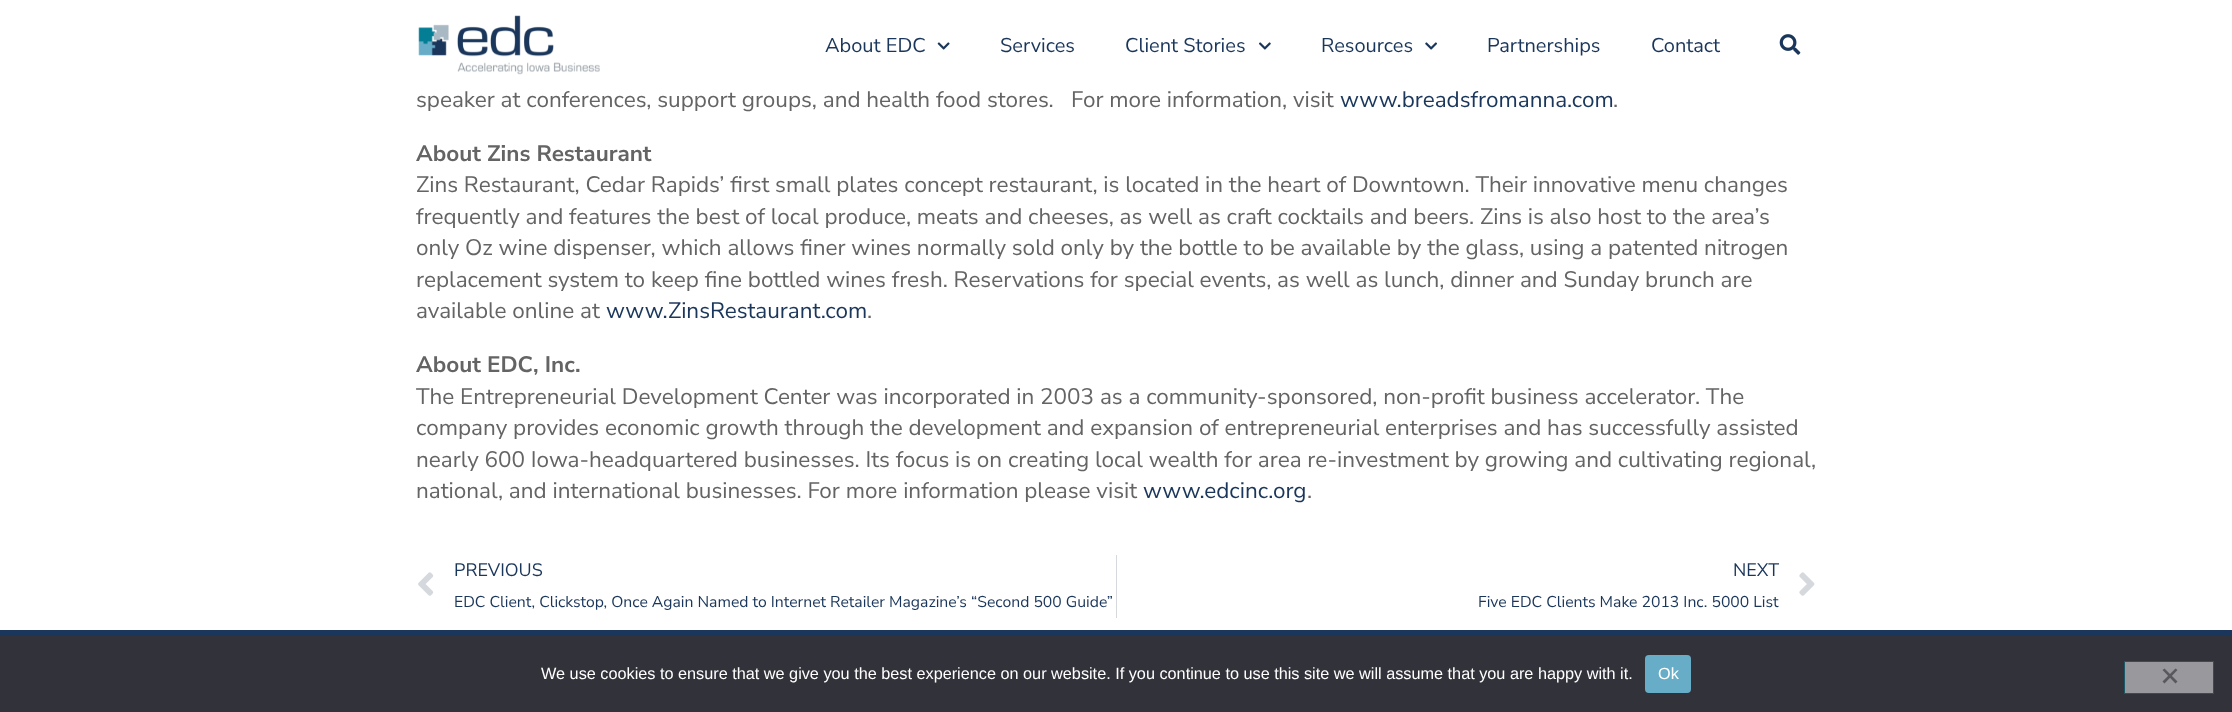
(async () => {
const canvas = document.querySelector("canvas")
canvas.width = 2232
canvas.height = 712
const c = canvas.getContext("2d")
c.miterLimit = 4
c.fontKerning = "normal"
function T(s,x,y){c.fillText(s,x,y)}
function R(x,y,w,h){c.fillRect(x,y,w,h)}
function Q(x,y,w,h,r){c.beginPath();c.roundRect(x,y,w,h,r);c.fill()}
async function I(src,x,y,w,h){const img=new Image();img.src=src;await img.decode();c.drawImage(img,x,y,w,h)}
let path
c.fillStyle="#fff"
R(0,0,2232,712)
await I("1.png",418,15,182,60)
c.font="20px Nunito Sans"
c.fillStyle="#1a365a"
T("About EDC",825,52)
await I("2.png",937,42,13,8)
T("Services",1000,52)
T("Client Stories",1125,52)
await I("3.png",1259,42,12,8)
T("Resources",1321,52)
await I("4.png",1425,42,12,8)
T("Partnerships",1487,52)
T("Contact",1651,52)
await I("5.png",1779,34,22,21)
c.font="22.5px Nunito Sans"
c.fillStyle="#646464"
T("speaker at conferences, support groups, and health food stores.   For more information, visit",416,107)
c.fillStyle="#1a365a"
T("www.breadsfromanna.com",1340,107)
c.fillStyle="#646464"
T(".",1613,107)
c.font="bold 22.5px Nunito Sans"
T("About Zins Restaurant",416,161)
c.font="22.5px Nunito Sans"
T("Zins Restaurant, Cedar Rapids’ first small plates concept restaurant, is located in the heart of Downtown. Their innovative menu changes",416,192)
T("frequently and features the best of local produce, meats and cheeses, as well as craft cocktails and beers. Zins is also host to the area’s",416,224)
T("only Oz wine dispenser, which allows finer wines normally sold only by the bottle to be available by the glass, using a patented nitrogen",416,255)
T("replacement system to keep fine bottled wines fresh. Reservations for special events, as well as lunch, dinner and Sunday brunch are",416,287)
T("available online at",416,318)
c.fillStyle="#1a365a"
T("www.ZinsRestaurant.com",606,318)
c.fillStyle="#646464"
T(".",867,318)
c.font="bold 22.5px Nunito Sans"
T("About EDC, Inc.",416,372)
c.font="22.5px Nunito Sans"
T("The Entrepreneurial Development Center was incorporated in 2003 as a community-sponsored, non-profit business accelerator. The",416,404)
T("company provides economic growth through the development and expansion of entrepreneurial enterprises and has successfully assisted",416,435)
T("nearly 600 Iowa-headquartered businesses. Its focus is on creating local wealth for area re-investment by growing and cultivating regional,",416,467)
T("national, and international businesses. For more information please visit",416,498)
c.fillStyle="#1a365a"
T("www.edcinc.org",1143,498)
c.fillStyle="#646464"
T(".",1307,498)
await I("6.png",418,572,16,24)
c.font="18px Nunito Sans"
c.fillStyle="#1a365a"
T("PREVIOUS",454,576)
c.font="15.75px Nunito Sans"
T("EDC Client, Clickstop, Once Again Named to Internet Retailer Magazine’s “Second 500 Guide”",454,607)
c.fillStyle="#d5d8dc"
R(1116,555,1,63)
c.font="18px Nunito Sans"
c.fillStyle="#1a365a"
T("NEXT",1733,576)
c.font="15.75px Nunito Sans"
T("Five EDC Clients Make 2013 Inc. 5000 List",1478,607)
await I("7.png",1799,572,16,24)
R(0,630,2232,6)
c.fillStyle="#32323a"
R(0,636,2232,76)
c.font="16.25px Liberation Sans"
c.fillStyle="#fff"
T("We use cookies to ensure that we give you the best experience on our website. If you continue to use this site we will assume that you are happy with it.",541,679)
c.fillStyle="#68adc8"
Q(1645,655,46,38,4)
c.fillStyle="#fff"
T("Ok",1658,679)
c.fillStyle="#99999d"
c.beginPath()
c.rect(2124.5,661.5,89,32)
c.fill()
c.strokeStyle="#1b5868"
c.stroke()
c.fillStyle="#59595d"
path = new Path2D("M2175.5 668.5l2 1.5l-13 13.5l-2-2z")
c.fill(path)
path = new Path2D("M2162.5 670l2-1.5l13 13l-2 2z")
c.fill(path)
})()
